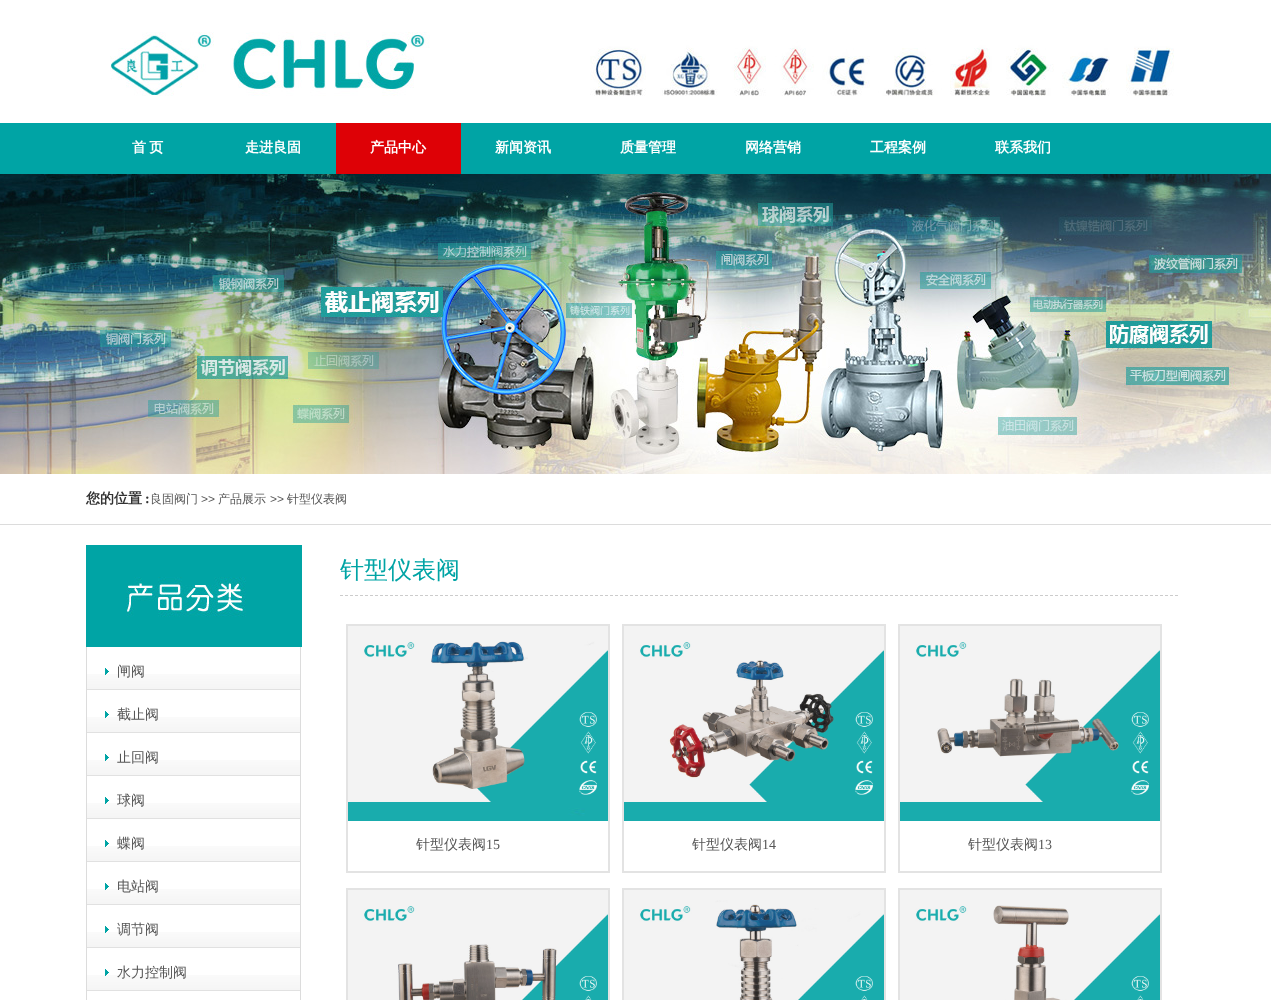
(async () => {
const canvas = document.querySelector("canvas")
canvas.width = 1271
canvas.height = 1000
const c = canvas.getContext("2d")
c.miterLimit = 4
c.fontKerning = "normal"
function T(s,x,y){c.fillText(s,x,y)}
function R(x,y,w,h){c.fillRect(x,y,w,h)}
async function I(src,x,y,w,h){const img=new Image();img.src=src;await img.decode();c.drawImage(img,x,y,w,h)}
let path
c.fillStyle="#fff"
R(0,0,1271,1000)
c.fillStyle="#00a4a5"
R(0,123,1271,51)
await I("1.png",110,32,1064,64)
c.wordSpacing="-1px"
c.font="bold 14px WenQuanYi Zen Hei"
c.fillStyle="#fff"
T("首 页",132,152)
c.wordSpacing="0px"
T("走进良固",245,152)
c.fillStyle="#de0106"
R(336,123,125,51)
c.fillStyle="#fff"
T("产品中心",370,152)
T("新闻资讯",495,152)
T("质量管理",620,152)
T("网络营销",745,152)
T("工程案例",870,152)
T("联系我们",995,152)
await I("2.png",0,174,1271,300)
c.fillStyle="#dcdcdc"
R(0,524,1271,1)
c.fillStyle="#333"
T("您的位置",86,503)
c.font="bold 14px Liberation Serif"
T(":",145,503)
c.font="500 12px WenQuanYi Zen Hei"
c.fillStyle="#565656"
T("良固阀门",150,503)
c.font="12px Liberation Sans"
T(">>",201,503)
c.font="500 12px WenQuanYi Zen Hei"
T("产品展示",218,503)
c.font="12px Liberation Sans"
T(">>",270,503)
c.font="500 12px WenQuanYi Zen Hei"
T("针型仪表阀",287,503)
await I("3.png",86,545,216,102)
await I("4.png",87,674,213,16)
c.fillStyle="#dcdcdc"
R(300,647,1,353)
R(86,647,1,353)
await I("5.png",105,668,4,7)
c.font="500 14px WenQuanYi Zen Hei"
c.fillStyle="#565656"
T("闸阀",117,676)
await I("4.png",87,717,213,16)
await I("5.png",105,711,4,7)
T("截止阀",117,719)
await I("4.png",87,760,213,16)
await I("5.png",105,754,4,7)
T("止回阀",117,762)
await I("4.png",87,803,213,16)
await I("5.png",105,797,4,7)
T("球阀",117,805)
await I("4.png",87,846,213,16)
await I("5.png",105,840,4,7)
T("蝶阀",117,848)
await I("4.png",87,889,213,16)
await I("5.png",105,883,4,7)
T("电站阀",117,891)
await I("4.png",87,932,213,16)
await I("5.png",105,926,4,7)
T("调节阀",117,934)
await I("4.png",87,975,213,16)
await I("5.png",105,969,4,7)
T("水力控制阀",117,977)
path = new Path2D("M340 595.5h838")
c.strokeStyle="#ccc"
c.setLineDash([3,2])
c.stroke(path)
c.font="500 24px WenQuanYi Zen Hei"
c.fillStyle="#00a4a5"
T("针型仪表阀",340,578)
c.strokeStyle="#e3e3e3"
c.lineWidth=2
c.setLineDash([])
c.strokeRect(347,625,262,247)
await I("6.png",348,626,260,195)
c.font="500 14px WenQuanYi Zen Hei"
c.fillStyle="#565656"
T("针型仪表阀",416,849)
c.font="14px Liberation Serif"
T("15",486,849)
c.strokeRect(623,625,262,247)
await I("7.png",624,626,260,195)
c.font="500 14px WenQuanYi Zen Hei"
T("针型仪表阀",692,849)
c.font="14px Liberation Serif"
T("14",762,849)
c.strokeRect(899,625,262,247)
await I("8.png",900,626,260,195)
c.font="500 14px WenQuanYi Zen Hei"
T("针型仪表阀",968,849)
c.font="14px Liberation Serif"
T("13",1038,849)
c.strokeRect(347,889,262,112)
await I("9.png",348,890,260,110)
c.strokeRect(623,889,262,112)
await I("10.png",624,890,260,110)
c.strokeRect(899,889,262,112)
await I("11.png",900,890,260,110)
})()
